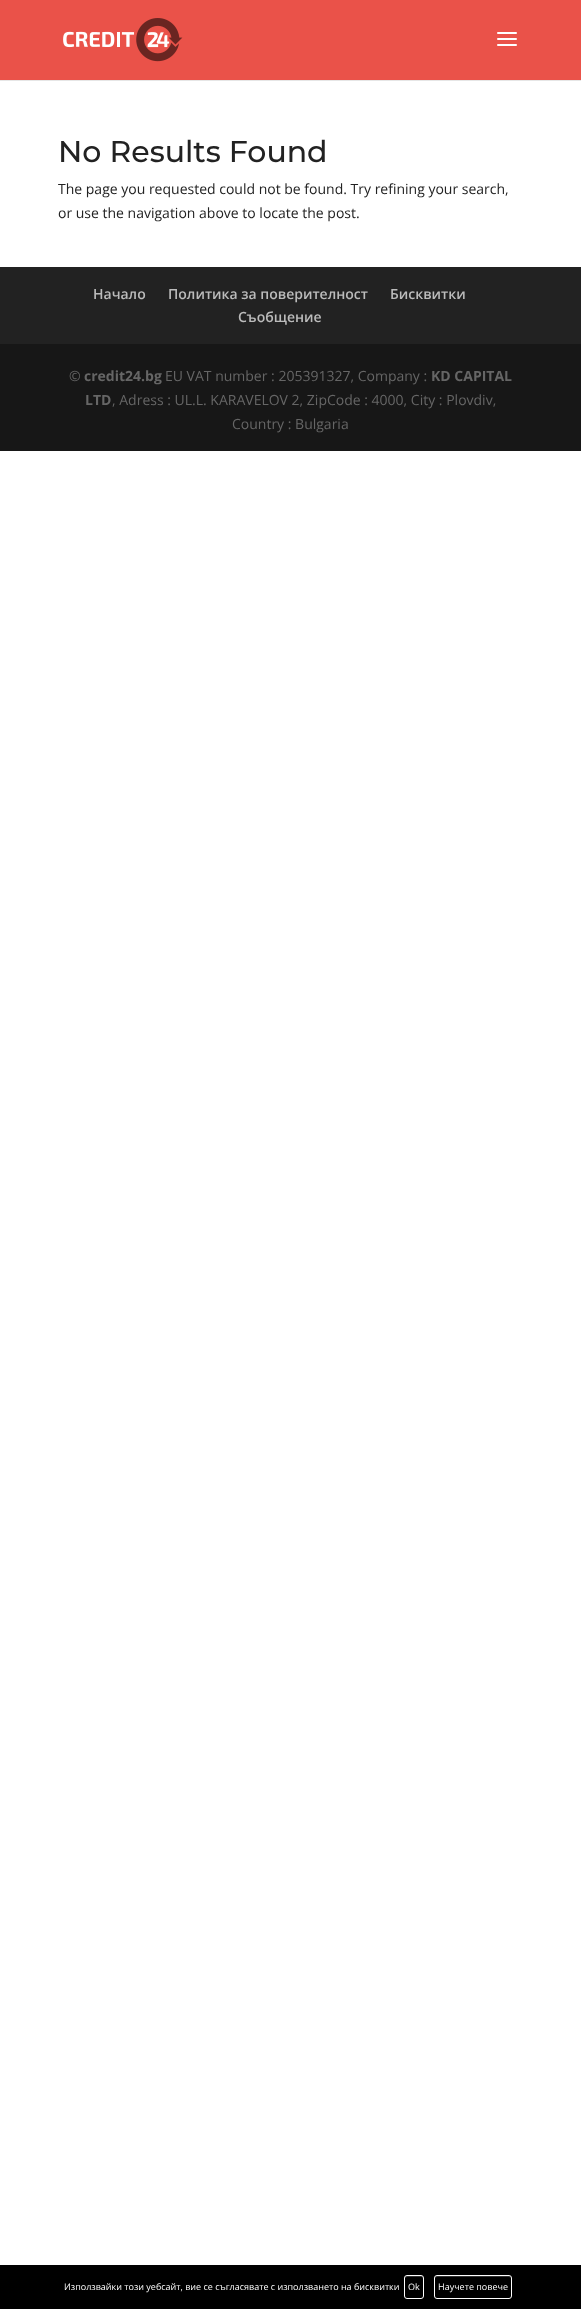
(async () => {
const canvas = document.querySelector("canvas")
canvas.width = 581
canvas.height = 2309
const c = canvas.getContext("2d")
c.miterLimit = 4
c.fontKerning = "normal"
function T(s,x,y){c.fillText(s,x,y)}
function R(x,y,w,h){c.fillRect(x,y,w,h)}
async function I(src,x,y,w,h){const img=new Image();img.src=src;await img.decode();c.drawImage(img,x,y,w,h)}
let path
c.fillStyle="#fff"
R(0,0,581,2309)
c.fillStyle="#e6e6e6"
R(0,80,581,1)
c.fillStyle="#ea5249"
R(0,0,581,80)
await I("1.png",63,18,120,44)
await I("2.png",497,32,20,14)
c.font="500 30px Montserrat"
c.fillStyle="#222"
T("No Results Found",58,162)
c.font="14px Open Sans"
T("The page you requested could not be found. Try refining your search,",58,194)
T("or use the navigation above to locate the post.",58,218)
R(0,267,581,77)
c.font="600 14px Open Sans"
c.fillStyle="#bbb"
T("Начало",93,299)
T("Политика за поверителност",168,299)
T("Бисквитки",390,299)
T("Съобщение",238,322)
c.fillStyle="#171717"
R(0,344,581,107)
c.font="14px Open Sans"
c.fillStyle="#666"
T("©",69,381)
c.font="bold 14px Open Sans"
T("credit24.bg",84,381)
c.font="14px Open Sans"
T("EU VAT number : 205391327, Company :",165,381)
c.font="bold 14px Open Sans"
T("KD CAPITAL",431,381)
T("LTD",85,405)
c.font="14px Open Sans"
T(", Adress : UL.L. KARAVELOV 2, ZipCode : 4000, City : Plovdiv,",112,405)
T("Country : Bulgaria",232,429)
c.fillStyle="#000"
R(0,2265,581,44)
c.font="9px Open Sans"
c.fillStyle="#fff"
T("Използвайки този уебсайт, вие се съгласявате с използването на бисквитки",64,2290)
c.fillStyle="#333"
path = new Path2D("M407 2277h15c.5 .5 1 1.5 1 3v-2c0-1-1-2-2-2h-14c-1 0-2 1-2 2z")
c.fill(path)
c.beginPath()
c.roundRect(404.5,2275.5,19,23,2.5)
c.strokeStyle="#fff"
c.stroke()
c.fillStyle="#fff"
T("Ok",408,2290)
c.fillStyle="#333"
path = new Path2D("M437 2277h72c1 0 2 1 2 2c0-6-11-3-14-3h-48c-3 0-14-3-14 3c0-1 1-2 2-2z")
c.fill(path)
c.beginPath()
c.roundRect(434.5,2275.5,77,23,2.5)
c.stroke()
c.fillStyle="#fff"
T("Научете повече",438,2290)
})()
